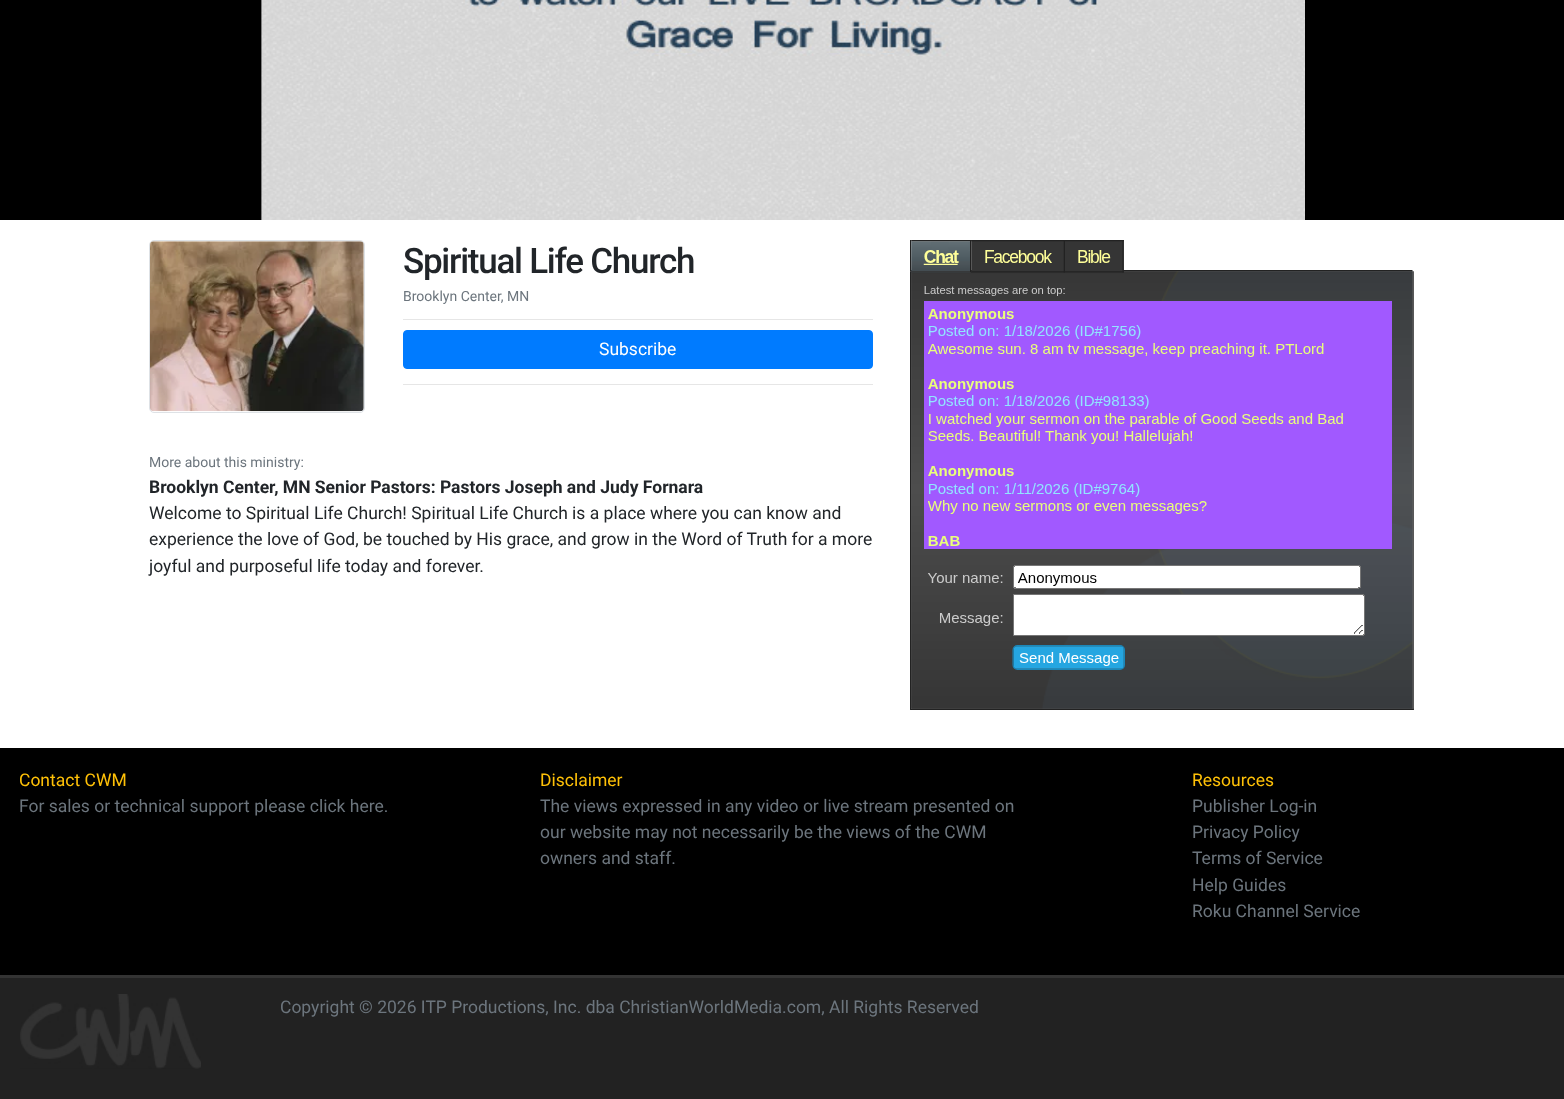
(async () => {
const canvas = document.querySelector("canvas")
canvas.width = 1564
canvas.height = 1099
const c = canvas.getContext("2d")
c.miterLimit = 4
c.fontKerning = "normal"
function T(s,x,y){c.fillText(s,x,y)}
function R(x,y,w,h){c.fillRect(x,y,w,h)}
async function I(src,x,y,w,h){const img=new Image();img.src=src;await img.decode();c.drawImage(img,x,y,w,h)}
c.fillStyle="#fff"
R(0,0,1564,1099)
c.fillStyle="#000"
R(0,0,1564,220)
await I("1.png",261,0,1044,220)
c.beginPath()
c.roundRect(149.5,240.5,215,172,4.5)
c.strokeStyle="#dee2e6"
c.stroke()
await I("2.png",150,241,214,171)
c.letterSpacing="-1.25px"
c.font="500 35px Roboto"
c.fillStyle="#212529"
T("Spiritual Life Church",403,273)
c.letterSpacing="0px"
c.font="14px Roboto"
c.fillStyle="#6c757d"
T("Brooklyn Center, MN",403,301)
c.fillStyle="#e6e6e6"
R(403,319,470,1)
c.fillStyle="#007bff"
c.beginPath()
c.roundRect(403.5,330.5,469,38,3.5)
c.fill()
c.strokeStyle="#007bff"
c.stroke()
c.font="17.5px Roboto"
c.fillStyle="#fff"
T("Subscribe",599,355)
c.fillStyle="#e6e6e6"
R(403,384,470,1)
c.font="14px Roboto"
c.fillStyle="#6c757d"
T("More about this ministry:",149,467)
c.font="bold 17.5px Roboto"
c.fillStyle="#212529"
T("Brooklyn Center, MN Senior Pastors: Pastors Joseph and Judy Fornara",149,493)
c.font="17.5px Roboto"
T("Welcome to Spiritual Life Church! Spiritual Life Church is a place where you can know and",149,519)
T("experience the love of God, be touched by His grace, and grow in the Word of Truth for a more",149,545)
T("joyful and purposeful life today and forever.",149,572)
await I("3.png",910,240,504,470)
c.fillStyle="#000"
R(0,748,1564,227)
c.fillStyle="#ffc107"
T("Contact CWM",19,786)
c.fillStyle="#6c757d"
T("For sales or technical support please click here.",19,812)
c.fillStyle="#ffc107"
T("Disclaimer",540,786)
c.fillStyle="#6c757d"
T("The views expressed in any video or live stream presented on",540,812)
T("our website may not necessarily be the views of the CWM",540,838)
T("owners and staff.",540,864)
c.fillStyle="#ffc107"
T("Resources",1192,786)
c.fillStyle="#6c757d"
T("Publisher Log-in",1192,812)
T("Privacy Policy",1192,838)
T("Terms of Service",1192,864)
T("Help Guides",1192,891)
T("Roku Channel Service",1192,917)
c.fillStyle="#222"
R(0,978,1564,121)
c.fillStyle="#333"
R(0,975,1564,3)
await I("4.png",20,994,181,75)
c.fillStyle="#6c757d"
T("Copyright © 2026 ITP Productions, Inc. dba ChristianWorldMedia.com, All Rights Reserved",280,1013)
})()
